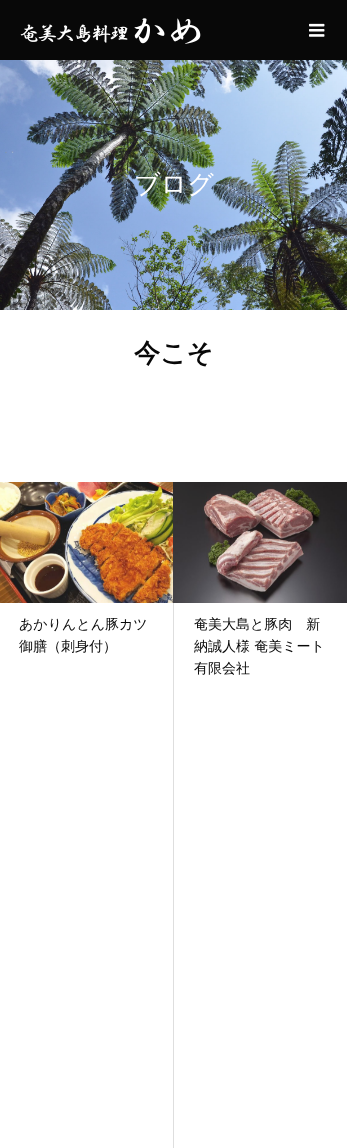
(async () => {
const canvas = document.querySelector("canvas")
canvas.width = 347
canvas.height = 1148
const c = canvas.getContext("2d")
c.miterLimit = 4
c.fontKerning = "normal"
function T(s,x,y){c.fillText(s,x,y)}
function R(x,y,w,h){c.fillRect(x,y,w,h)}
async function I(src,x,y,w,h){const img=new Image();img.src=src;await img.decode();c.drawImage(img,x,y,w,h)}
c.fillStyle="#fff"
R(0,0,347,1148)
c.fillStyle="#080808"
R(0,0,347,60)
await I("1.png",20,18,181,26)
await I("2.png",309,23,16,14)
await I("3.png",0,60,347,250)
c.font="500 26px WenQuanYi Zen Hei"
c.fillStyle="#fff"
T("ブログ",134,193)
c.font="bold 26px WenQuanYi Zen Hei"
c.fillStyle="#080808"
T("今こそ",134,362)
c.fillStyle="#dedede"
R(173,603,1,545)
await I("4.png",0,482,173,121)
c.font="500 14px WenQuanYi Zen Hei"
c.fillStyle="#080808"
T("あかりんとん豚カツ",19,629)
T("御膳（刺身付）",19,651)
await I("5.png",173,482,174,121)
T("奄美大島と豚肉　新",194,629)
T("納誠人様 奄美ミート",194,651)
T("有限会社",194,673)
})()
